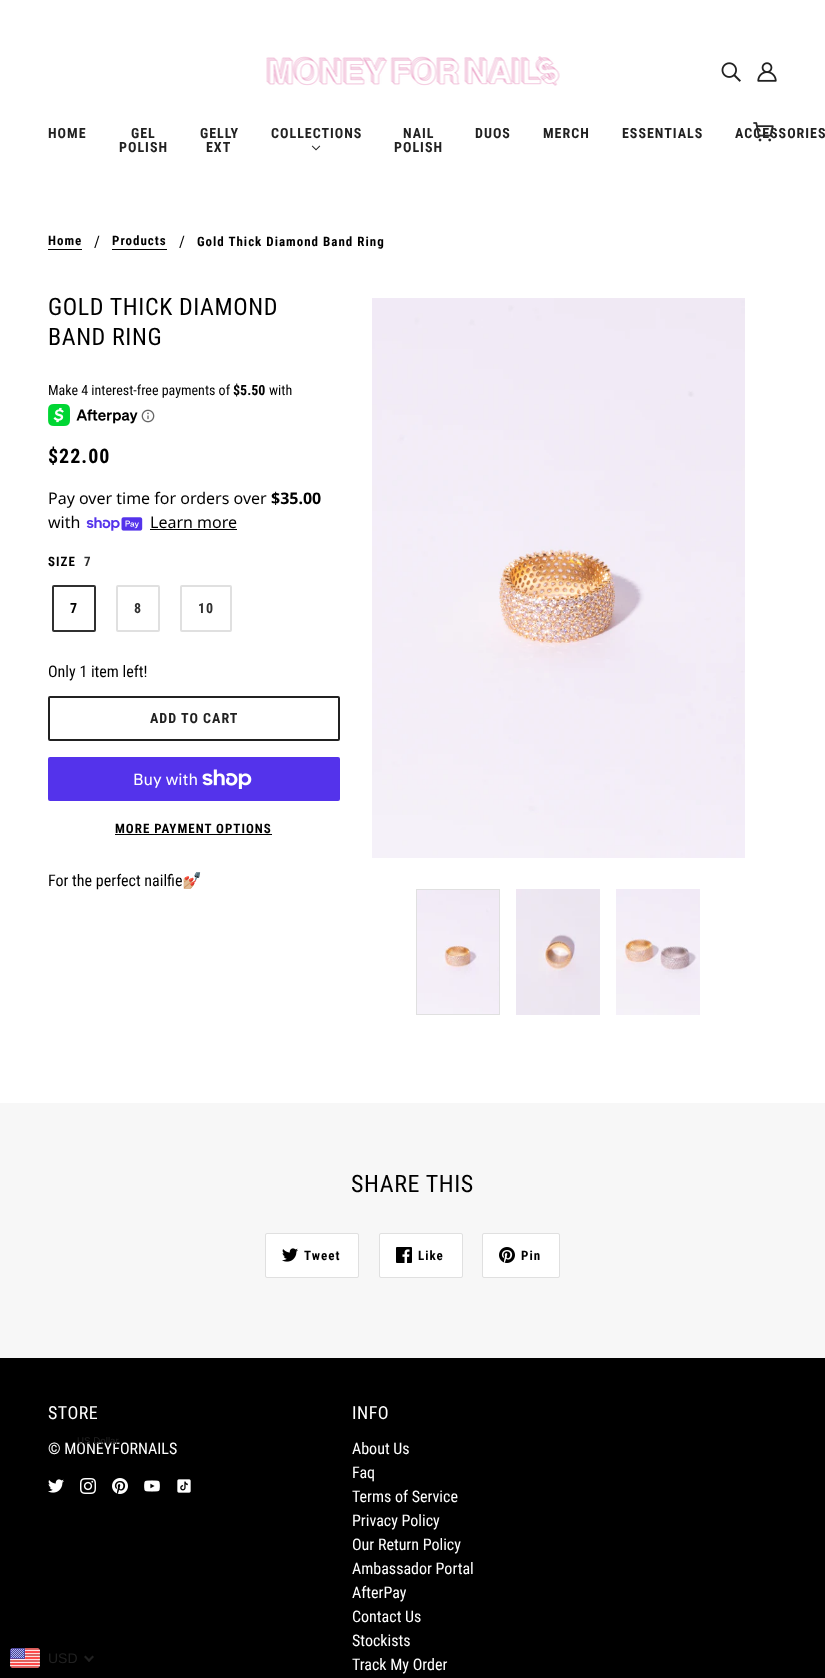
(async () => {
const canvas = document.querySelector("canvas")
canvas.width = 825
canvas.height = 1678
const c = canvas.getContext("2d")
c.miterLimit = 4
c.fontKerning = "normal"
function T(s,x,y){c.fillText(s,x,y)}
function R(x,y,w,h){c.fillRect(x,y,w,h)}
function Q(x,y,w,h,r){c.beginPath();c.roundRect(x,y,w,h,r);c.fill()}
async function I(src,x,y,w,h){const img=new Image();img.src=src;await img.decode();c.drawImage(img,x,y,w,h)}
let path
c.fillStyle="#fff"
R(0,0,825,1678)
await I("1.png",266,56,294,30)
await I("2.png",721,62,20,20)
await I("3.png",757,62,20,20)
c.letterSpacing="1px"
c.font="bold 14px Roboto Condensed"
c.fillStyle="#212121"
T("ACCESSORIES",735,138)
await I("4.png",753,122,21,20)
T("HOME",48,138)
T("GEL",131,138)
T("POLISH",119,152)
T("GELLY",200,138)
T("EXT",206,152)
T("COLLECTIONS",271,138)
await I("5.png",311,145,10,6)
T("NAIL",403,138)
T("POLISH",394,152)
T("DUOS",475,138)
T("MERCH",543,138)
T("ESSENTIALS",622,138)
c.font="bold 13px Roboto Condensed"
c.fillStyle="#000"
T("Home",48,245)
R(48,249,34,1)
c.letterSpacing="0px"
c.font="16px Roboto Condensed"
T("/",94,247)
c.letterSpacing="1px"
c.font="bold 13px Roboto Condensed"
T("Products",112,245)
R(112,249,55,1)
c.letterSpacing="0px"
c.font="16px Roboto Condensed"
T("/",179,247)
c.letterSpacing="1px"
c.font="bold 13px Roboto Condensed"
T("Gold Thick Diamond Band Ring",197,246)
c.letterSpacing="0.6px"
c.font="24px Roboto Condensed"
T("GOLD THICK DIAMOND",48,315)
T("BAND RING",48,345)
await I("6.png",372,298,373,560)
c.strokeStyle="#e0e0e0"
c.strokeRect(416.5,889.5,83,125)
await I("7.png",417,890,82,124)
await I("8.png",516,889,84,126)
await I("9.png",616,889,84,126)
c.letterSpacing="0px"
c.font="14px Roboto Condensed"
T("Make 4 interest-free payments of",48,395)
c.font="bold 14px Roboto Condensed"
T("$5.50",233,395)
c.font="14px Roboto Condensed"
T("with",269,395)
await I("10.png",48,404,90,22)
await I("11.png",141,409,14,14)
c.letterSpacing="1px"
c.font="bold 20px Roboto Condensed"
T("$22.00",48,463)
c.letterSpacing="0px"
c.font="16px Noto Sans"
T("Pay over time for orders over",48,504)
c.font="bold 16px Noto Sans"
T("$35.00",271,504)
c.font="16px Noto Sans"
T("with",48,528)
await I("12.png",86,517,57,14)
T("Learn more",150,528)
R(150,529,87,1)
c.letterSpacing="1px"
c.font="bold 13px Roboto Condensed"
T("SIZE",48,566)
c.fillStyle="#303030"
T("7",84,566)
c.beginPath()
c.roundRect(53,586,42,45,1)
c.strokeStyle="#303030"
c.lineWidth=2
c.stroke()
c.font="bold 14px Roboto Condensed"
c.fillStyle="#000"
T("7",70,613)
c.beginPath()
c.roundRect(117,586,42,45,1)
c.strokeStyle="#e0e0e0"
c.stroke()
c.fillStyle="#303030"
T("8",134,613)
c.beginPath()
c.roundRect(181,586,50,45,1)
c.stroke()
T("10",198,613)
c.letterSpacing="0px"
c.font="16px Roboto Condensed"
c.fillStyle="#000"
T("Only 1 item left!",48,677)
c.beginPath()
c.roundRect(49,697,290,43,1)
c.strokeStyle="#212121"
c.stroke()
c.letterSpacing="1px"
c.font="bold 14px Roboto Condensed"
c.fillStyle="#212121"
T("ADD TO CART",150,723)
c.fillStyle="#5433eb"
Q(48,757,292,44,2)
c.letterSpacing="0px"
c.font="16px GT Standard"
c.fillStyle="#fff"
T("Buy with",133,785)
await I("13.png",202,769,50,20)
c.letterSpacing="1px"
c.font="bold 13px Roboto Condensed"
c.fillStyle="#000"
T("MORE PAYMENT OPTIONS",115,833)
R(115,834,157,1)
c.letterSpacing="0px"
c.font="16px Roboto Condensed"
T("For the perfect nailfie",48,886)
c.font="16px Noto Color Emoji"
T("💅🏼",182,886)
c.fillStyle="#f7f7f7"
R(0,1103,825,255)
c.letterSpacing="0.6px"
c.font="24px Roboto Condensed"
c.fillStyle="#000"
T("SHARE THIS",351,1192)
c.fillStyle="#fff"
c.beginPath()
c.roundRect(265.5,1233.5,93,44,1.5)
c.fill()
c.strokeStyle="#e0e0e0"
c.lineWidth=1
c.stroke()
await I("14.png",282,1248,16,14)
c.letterSpacing="1px"
c.font="bold 13px Roboto Condensed"
c.fillStyle="#000"
T("Tweet",304,1260)
c.fillStyle="#fff"
c.beginPath()
c.roundRect(379.5,1233.5,83,44,1.5)
c.fill()
c.stroke()
await I("15.png",396,1247,16,16)
c.fillStyle="#000"
T("Like",418,1260)
c.fillStyle="#fff"
c.beginPath()
c.roundRect(482.5,1233.5,77,44,1.5)
c.fill()
c.stroke()
await I("16.png",499,1247,16,16)
c.fillStyle="#000"
T("Pin",521,1260)
R(0,1358,825,320)
c.letterSpacing="0.5px"
c.font="18px Roboto Condensed"
c.fillStyle="#fff"
T("STORE",48,1419)
c.letterSpacing="0px"
c.font="16px Roboto Condensed"
T("© MONEYFORNAILS",48,1454)
await I("17.png",48,1479,16,14)
await I("18.png",80,1478,16,16)
await I("19.png",112,1478,16,16)
await I("20.png",144,1480,16,12)
await I("21.png",177,1479,14,14)
c.letterSpacing="0.5px"
c.font="18px Roboto Condensed"
T("INFO",352,1419)
c.letterSpacing="0px"
c.font="16px Roboto Condensed"
T("About Us",352,1454)
T("Faq",352,1478)
T("Terms of Service",352,1502)
T("Privacy Policy",352,1526)
T("Our Return Policy",352,1550)
T("Ambassador Portal",352,1574)
T("AfterPay",352,1598)
T("Contact Us",352,1622)
T("Stockists",352,1646)
T("Track My Order",352,1670)
c.font="9.75px Liberation Sans"
c.fillStyle="#212121"
T("US Dollar",77,1444)
await I("22.png",10,1648,30,20)
c.font="14px Liberation Sans"
T("USD",48,1663)
path = new Path2D("M92.5 1655.5l1.5 1.5l-5 5l-1.5-1.5z")
c.fill(path)
path = new Path2D("M85.5 1655.5l5 5l-1.5 1.5l-5-5z")
c.fill(path)
})()
